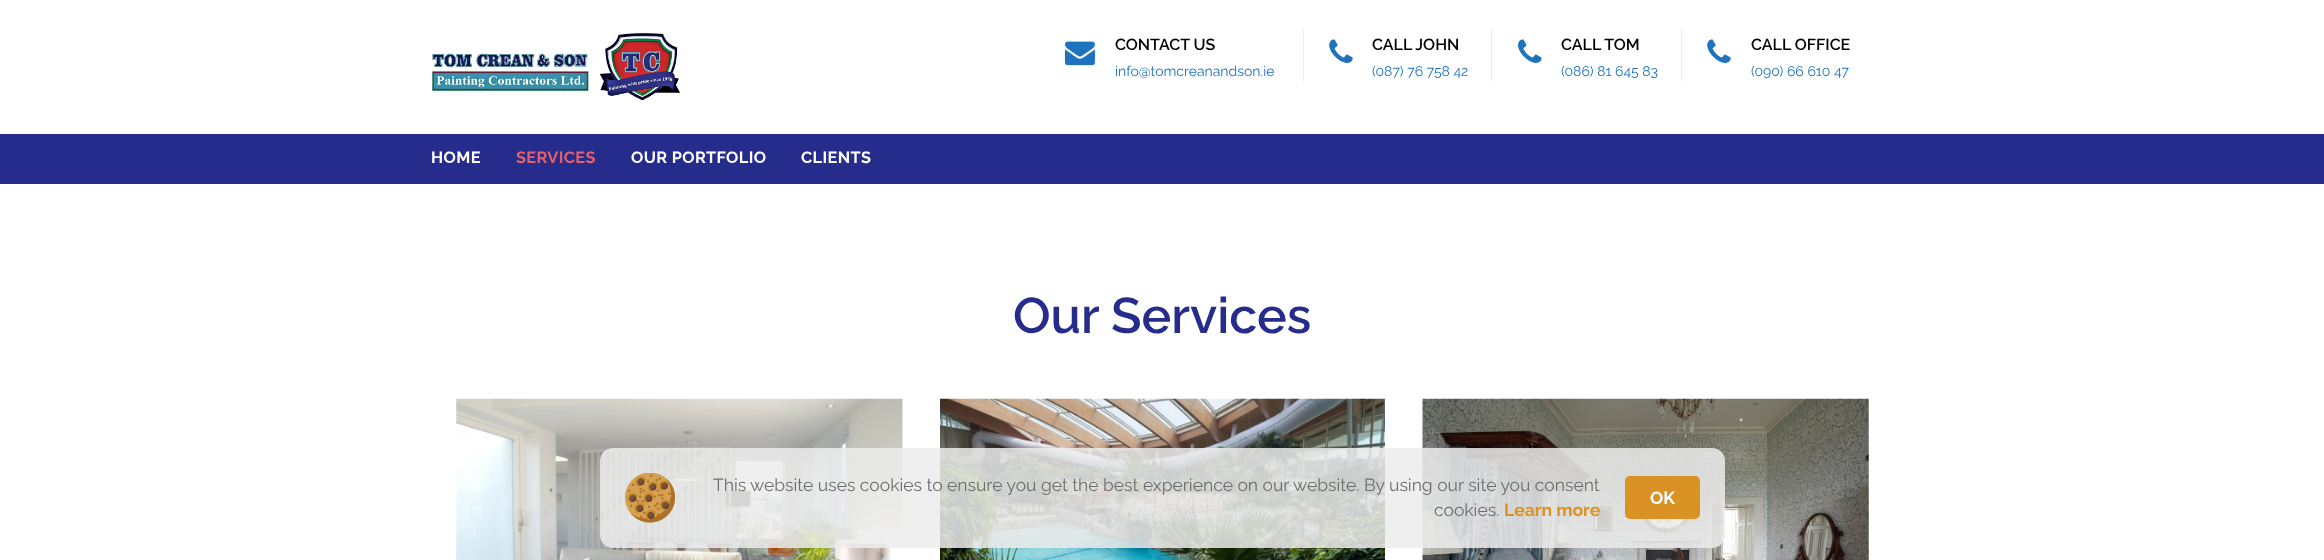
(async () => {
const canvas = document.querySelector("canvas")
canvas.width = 2324
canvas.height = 560
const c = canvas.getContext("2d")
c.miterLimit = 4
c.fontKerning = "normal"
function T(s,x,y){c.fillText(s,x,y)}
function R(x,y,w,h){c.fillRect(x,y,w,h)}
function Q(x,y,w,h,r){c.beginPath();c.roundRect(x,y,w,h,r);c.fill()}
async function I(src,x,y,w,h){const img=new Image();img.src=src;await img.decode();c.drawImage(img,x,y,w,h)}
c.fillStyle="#fff"
R(0,0,2324,560)
await I("1.png",431,33,249,68)
await I("2.png",1064,41,31,25)
c.font="600 16px Raleway"
c.fillStyle="#000"
T("CONTACT US",1115,50)
c.font="14px Raleway"
c.fillStyle="#1e73be"
T("info@tomcreanandson.ie",1115,76)
c.fillStyle="#ececec"
R(1303,29,1,52)
await I("3.png",1329,39,24,24)
c.font="600 16px Raleway"
c.fillStyle="#000"
T("CALL JOHN",1372,50)
c.font="14px Raleway"
c.fillStyle="#1e73be"
T("(087) 76 758 42",1372,76)
c.fillStyle="#ececec"
R(1491,29,1,52)
await I("4.png",1518,39,24,24)
c.font="600 16px Raleway"
c.fillStyle="#000"
T("CALL TOM",1561,50)
c.font="14px Raleway"
c.fillStyle="#1e73be"
T("(086) 81 645 83",1561,76)
c.fillStyle="#ececec"
R(1681,29,1,52)
await I("5.png",1707,39,24,24)
c.font="600 16px Raleway"
c.fillStyle="#000"
T("CALL OFFICE",1751,50)
c.font="14px Raleway"
c.fillStyle="#1e73be"
T("(090) 66 610 47",1751,76)
c.fillStyle="#252c8b"
R(0,134,2324,50)
c.letterSpacing="0.4px"
c.font="bold 16.25px Raleway"
c.fillStyle="#fff"
T("HOME",431,163)
c.fillStyle="#e66069"
T("SERVICES",516,163)
c.fillStyle="#fff"
T("OUR PORTFOLIO",631,163)
T("CLIENTS",801,163)
c.letterSpacing="0px"
c.font="600 50px Raleway"
c.fillStyle="#252c8b"
T("Our Services",1013,333)
await I("6.png",456,398,447,162)
await I("7.png",940,398,445,162)
await I("8.png",1422,398,447,162)
c.fillStyle="#ecececd9"
Q(600,448,1125,100,13)
await I("9.png",625,473,50,50)
c.font="17.5px Raleway"
c.fillStyle="#6e6e6e"
T("This website uses cookies to ensure you get the best experience on our website. By using our site you consent",713,491)
T("cookies.",1434,516)
c.font="bold 17.5px Raleway"
c.fillStyle="#db9225"
T("Learn more",1504,516)
Q(1625,476,75,43,5)
c.fillStyle="#fff"
T("OK",1650,504)
})()
